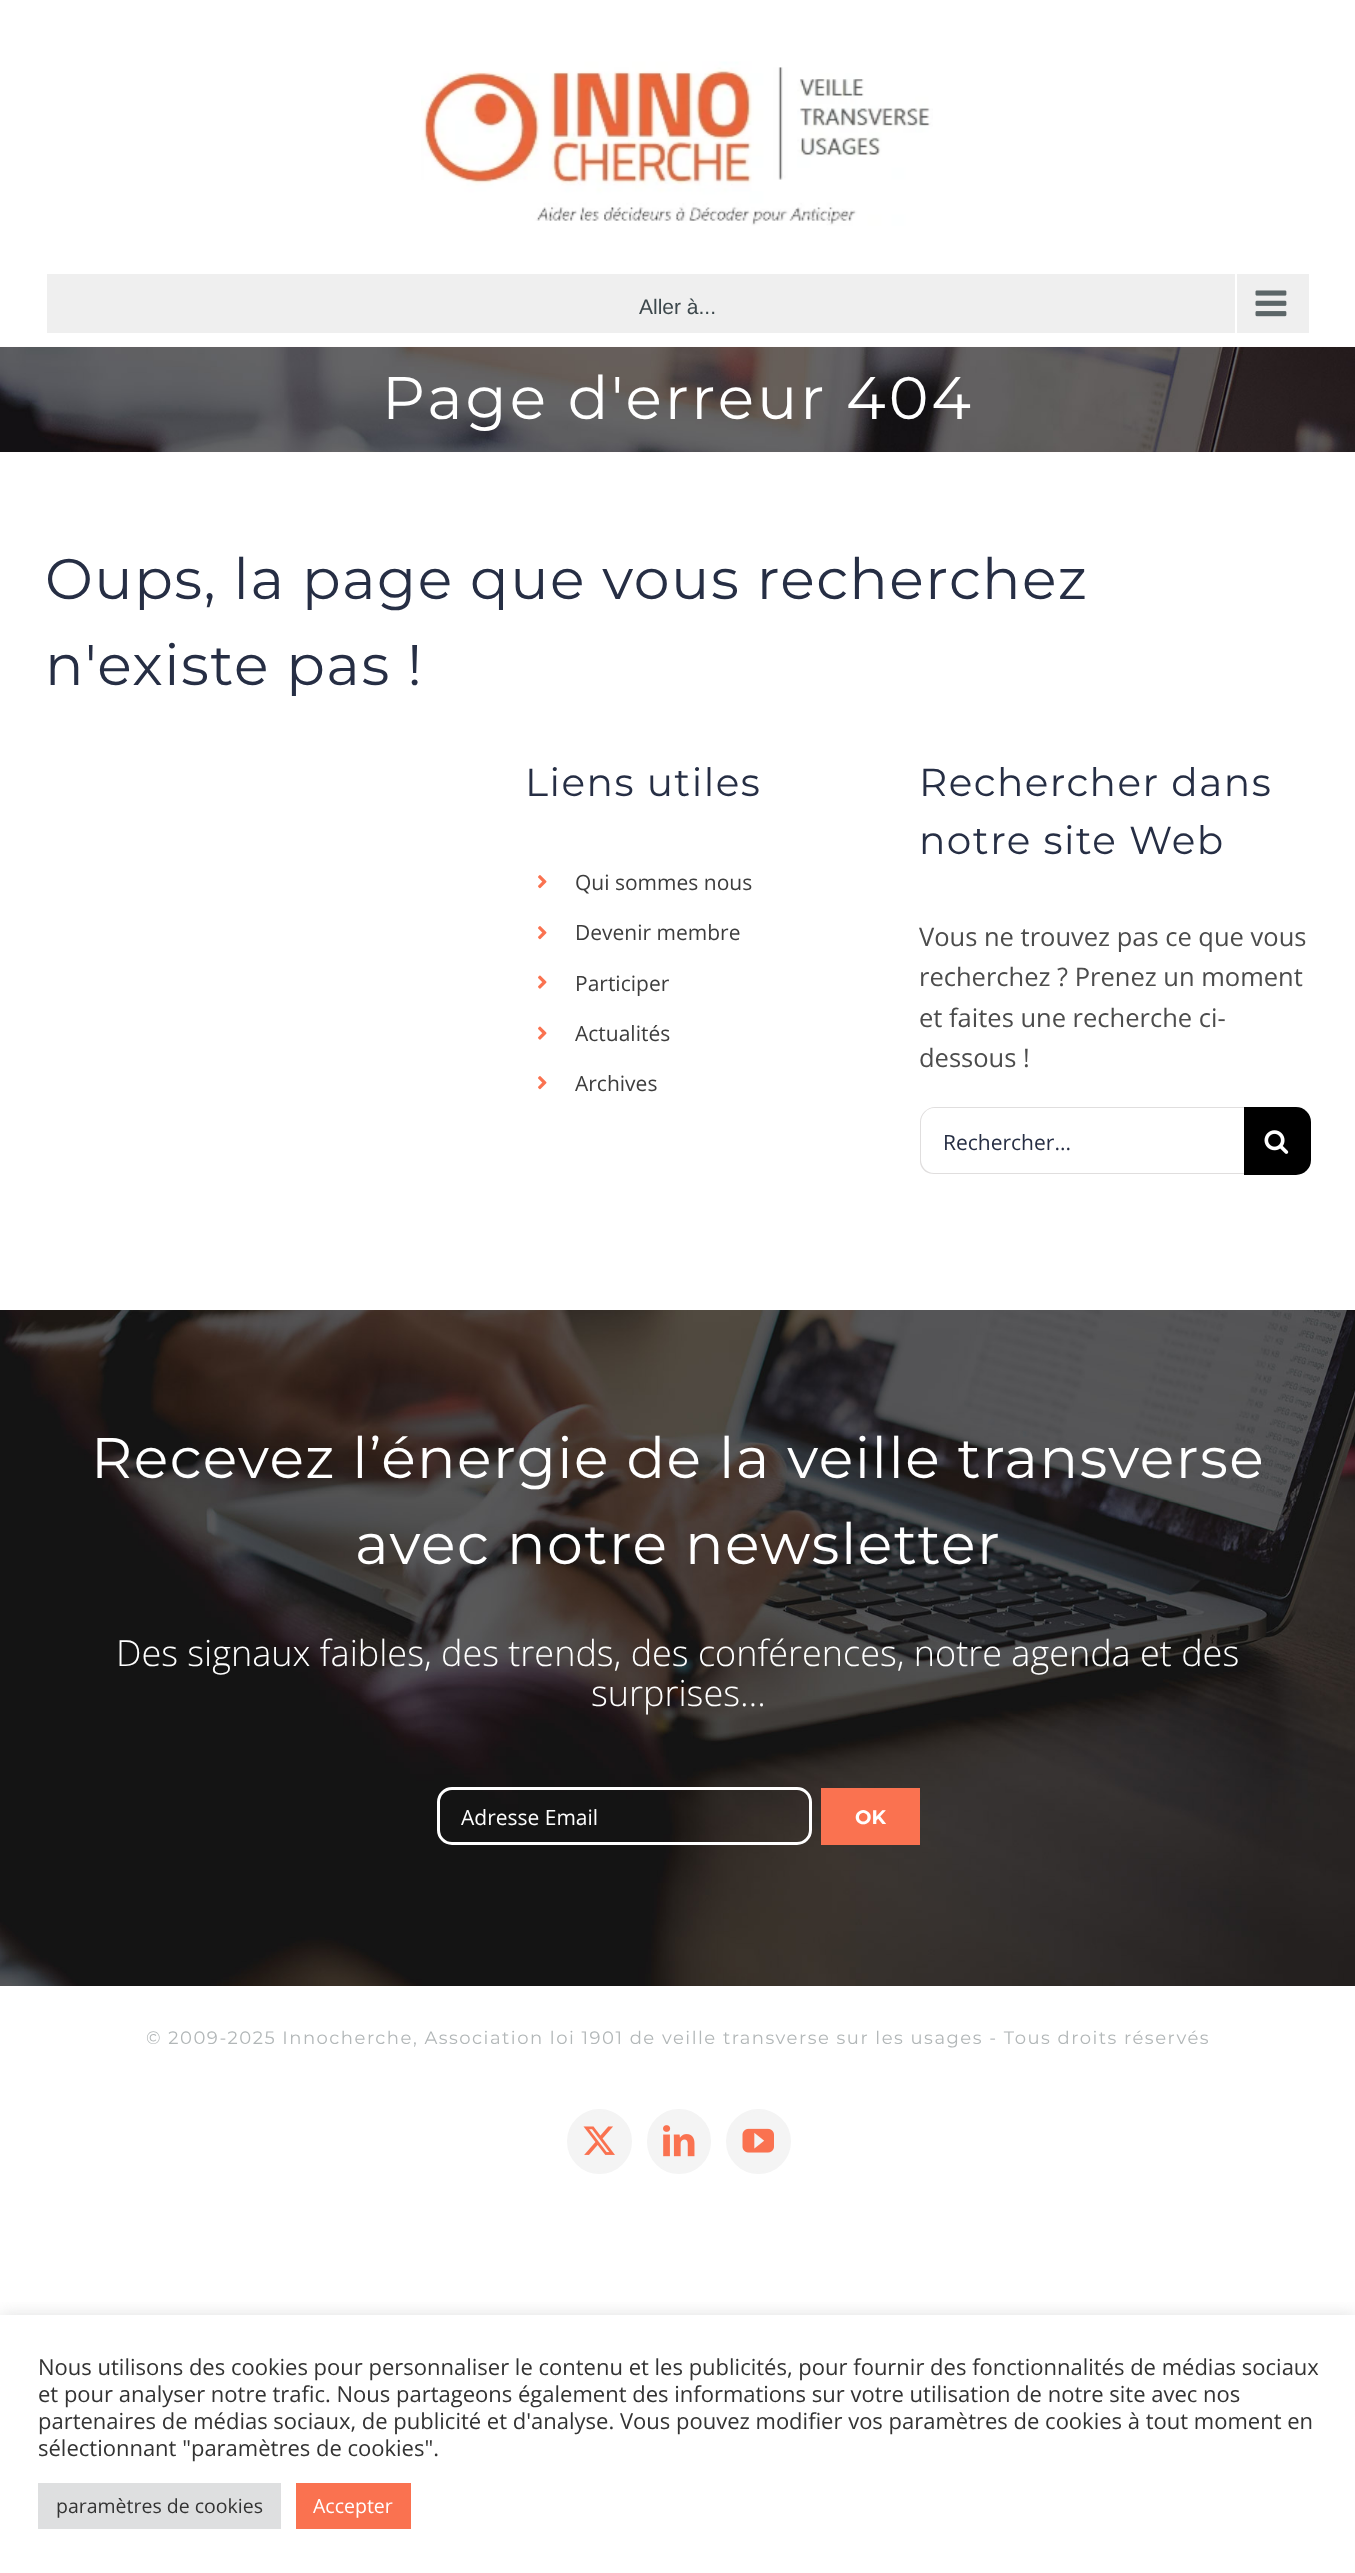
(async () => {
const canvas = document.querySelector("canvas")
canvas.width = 1355
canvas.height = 2573
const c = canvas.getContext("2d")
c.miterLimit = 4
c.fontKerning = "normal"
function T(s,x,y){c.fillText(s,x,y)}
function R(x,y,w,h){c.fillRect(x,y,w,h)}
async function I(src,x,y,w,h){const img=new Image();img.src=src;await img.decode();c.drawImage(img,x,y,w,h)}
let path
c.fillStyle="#fff"
R(0,0,1355,2573)
await I("1.png",421,61,512,165)
c.fillStyle="#efefef"
R(47,274,1262,59)
c.font="21px Liberation Sans"
c.fillStyle="#3d484c"
T("Aller à...",639,314)
c.fillStyle="#fff"
R(1235,273,2,60)
await I("2.png",1255,290,32,27)
await I("3.png",0,347,1355,105)
c.fillStyle="#fffcfc"
R(0,346,1355,1)
R(0,452,1355,1)
c.letterSpacing="3px"
c.font="60px Montserrat"
c.fillStyle="#fff"
T("Page d'erreur 404",382,419)
c.letterSpacing="1.5px"
c.font="57px Montserrat"
c.fillStyle="#262e44"
T("Oups, la page que vous recherchez",45,599)
T("n'existe pas !",45,685)
c.font="39px Montserrat"
T("Liens utiles",525,796)
await I("4.png",538,875,9,14)
c.letterSpacing="0px"
c.font="21px Open Sans"
c.fillStyle="#3d3d3d"
T("Qui sommes nous",575,890)
await I("4.png",538,926,9,14)
T("Devenir membre",575,940)
await I("5.png",538,975,9,14)
T("Participer",575,991)
await I("5.png",538,1026,9,14)
T("Actualités",575,1041)
await I("4.png",538,1076,9,14)
T("Archives",575,1091)
c.letterSpacing="1.5px"
c.font="39px Montserrat"
c.fillStyle="#262e44"
T("Rechercher dans",919,796)
T("notre site Web",919,854)
c.letterSpacing="0px"
c.font="25.5px Open Sans"
c.fillStyle="#4c4c4c"
T("Vous ne trouvez pas ce que vous",919,946)
T("recherchez ? Prenez un moment",919,986)
T("et faites une recherche ci-",919,1027)
T("dessous !",919,1067)
c.fillStyle="#e0dede"
path = new Path2D("M934 1108h310v-1h-309c-8 0-15 7-15 15v38c0 2 0 4 1 6c2 5 7 8 13 8h310v-1h-310c-7 0-13-6-13-13v-38c0-7 6-14 13-14z")
c.fill(path)
c.font="21px Open Sans"
c.fillStyle="#262e44"
T("Rechercher...",943,1150)
c.fillStyle="#000"
c.beginPath()
c.roundRect(1244,1107,67,68,[0,15,15,0])
c.fill()
await I("6.png",1264,1130,25,24)
await I("7.png",0,1310,1355,676)
c.letterSpacing="1.5px"
c.font="57px Montserrat"
c.fillStyle="#fff"
T("Recevez l’énergie de la veille transverse",91,1478)
T("avec notre newsletter",355,1564)
c.letterSpacing="0px"
c.font="300 36px Open Sans"
T("Des signaux faibles, des trends, des conférences, notre agenda et des",116,1666)
T("surprises…",591,1706)
c.beginPath()
c.roundRect(438.5,1788.5,372,55,13.5)
c.strokeStyle="#fff"
c.lineWidth=3
c.stroke()
c.font="21px Open Sans"
T("Adresse Email",461,1825)
c.fillStyle="#fa7250"
R(821,1788,99,57)
c.font="bold 19.5px Montserrat"
c.fillStyle="#fff"
T("OK",855,1824)
c.letterSpacing="1.5px"
c.font="18px Montserrat"
c.fillStyle="#b2b7b8"
T("© 2009-2025 Innocherche, Association loi 1901 de veille transverse sur les usages - Tous droits réservés",146,2044)
c.fillStyle="#f4f4f4"
c.beginPath()
c.arc(599.5,2141.5,31.5,0,7)
c.fill()
c.strokeStyle="#f4f4f4"
c.lineWidth=2
c.stroke()
await I("8.png",583,2126,32,29)
c.beginPath()
c.roundRect(648,2110,62,63,31)
c.fill()
c.stroke()
await I("9.png",663,2125,32,32)
c.beginPath()
c.arc(758.5,2141.5,31.5,0,7)
c.fill()
c.stroke()
await I("10.png",742,2128,32,25)
c.save()
c.beginPath()
c.rect(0,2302,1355,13)
c.clip()
c.fillStyle="#acabab4d"
c.filter="blur(7.5px)"
c.beginPath()
c.rect(0,2313,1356,260)
c.fill()
c.filter="none"
c.restore()
c.letterSpacing="0px"
c.font="22px Open Sans"
c.fillStyle="#333"
T("Nous utilisons des cookies pour personnaliser le contenu et les publicités, pour fournir des fonctionnalités de médias sociaux",38,2375)
T("et pour analyser notre trafic. Nous partageons également des informations sur votre utilisation de notre site avec nos",38,2402)
T("partenaires de médias sociaux, de publicité et d'analyse. Vous pouvez modifier vos paramètres de cookies à tout moment en",38,2429)
T("sélectionnant \"paramètres de cookies\".",38,2456)
c.fillStyle="#dedfe0"
R(38,2483,243,46)
c.font="19.5px Open Sans"
c.fillStyle="#333"
T("paramètres de cookies",56,2513)
c.fillStyle="#fa7250"
R(296,2483,115,46)
c.fillStyle="#fff"
T("Accepter",313,2513)
})()
